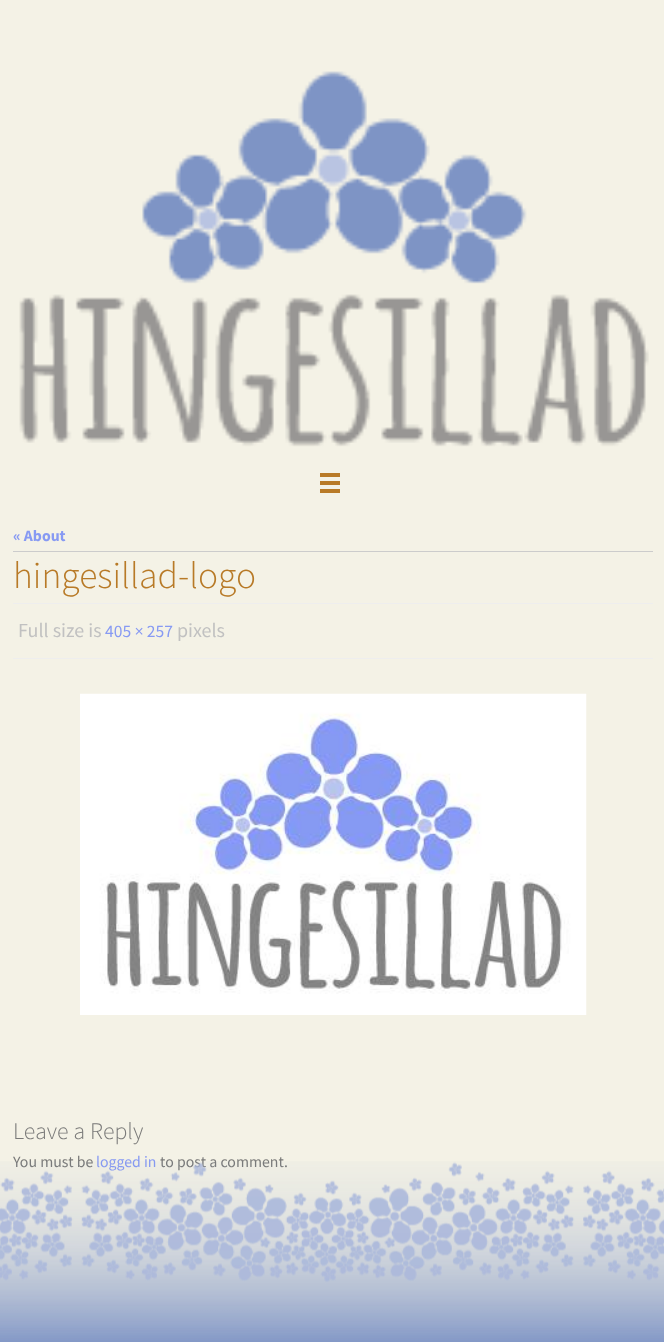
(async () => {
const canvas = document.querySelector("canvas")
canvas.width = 664
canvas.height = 1342
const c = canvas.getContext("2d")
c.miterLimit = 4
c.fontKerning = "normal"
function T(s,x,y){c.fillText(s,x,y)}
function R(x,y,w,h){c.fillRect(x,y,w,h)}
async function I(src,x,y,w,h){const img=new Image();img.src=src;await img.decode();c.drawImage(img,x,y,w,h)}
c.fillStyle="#f4f2e6"
R(0,0,664,1342)
await I("1.png",19,71,630,376)
await I("2.png",320,473,20,20)
c.fillStyle="#ccc"
R(13,551,640,1)
c.font="bold 15.75px Source Sans Pro"
c.fillStyle="#879af3"
T("« About",13,541)
c.font="300 37.5px Source Sans Pro"
c.fillStyle="#b87a27"
T("hingesillad-logo",13,588)
c.fillStyle="#eee"
R(13,603,640,1)
R(13,658,640,1)
c.font="20px Source Sans Pro"
c.fillStyle="#c1c1c1"
T("Full size is",18,637)
c.font="17.5px Source Sans Pro"
c.fillStyle="#879af3"
T("405 × 257",105,637)
c.font="20px Source Sans Pro"
c.fillStyle="#c1c1c1"
T("pixels",177,637)
await I("3.png",80,693,507,322)
c.font="300 23.75px Source Sans Pro"
c.fillStyle="#7a7a79"
T("Leave a Reply",13,1139)
c.font="15.75px Source Sans Pro"
T("You must be",13,1167)
c.fillStyle="#879af3"
T("logged in",96,1167)
c.fillStyle="#7a7a79"
T("to post a comment.",160,1167)
await I("4.png",0,1161,664,181)
})()
